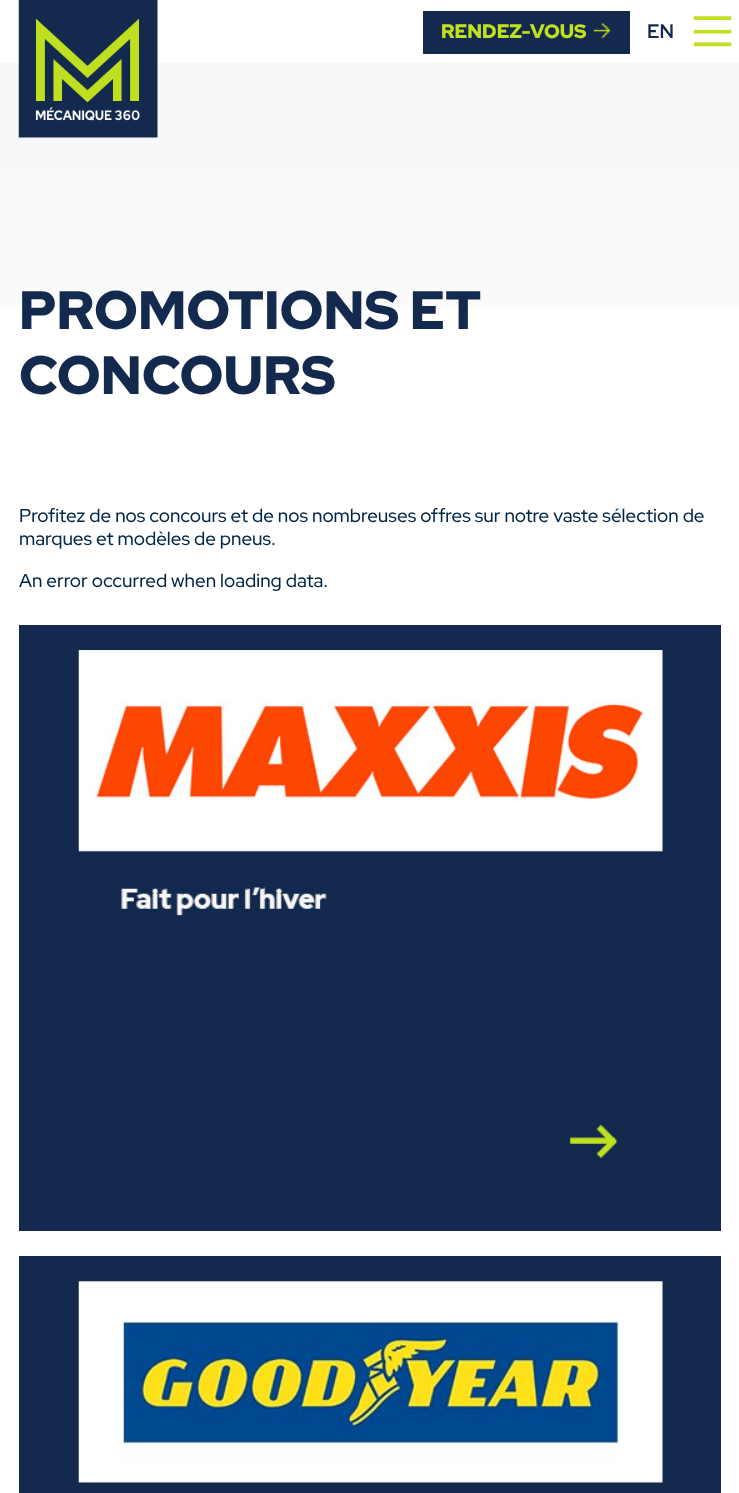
(async () => {
const canvas = document.querySelector("canvas")
canvas.width = 739
canvas.height = 1493
const c = canvas.getContext("2d")
c.miterLimit = 4
c.fontKerning = "normal"
function T(s,x,y){c.fillText(s,x,y)}
function R(x,y,w,h){c.fillRect(x,y,w,h)}
async function I(src,x,y,w,h){const img=new Image();img.src=src;await img.decode();c.drawImage(img,x,y,w,h)}
c.fillStyle="#fff"
R(0,0,739,1493)
await I("4.png",0,63,739,244)
await I("1.png",18,0,140,138)
c.fillStyle="#13294e"
R(423,11,207,43)
c.font="900 19.5px Red Hat Display"
c.fillStyle="#c0e021"
T("RENDEZ-VOUS",441,38)
await I("2.png",593,22,18,17)
c.font="bold 19.5px Red Hat Display"
c.fillStyle="#13294e"
T("EN",647,38)
await I("3.png",693,16,39,31)
c.font="900 54px Red Hat Display"
T("PROMOTIONS ET",19,329)
T("CONCOURS",19,394)
c.font="500 18.75px Red Hat Display"
c.fillStyle="#002747"
T("Profitez de nos concours et de nos nombreuses offres sur notre vaste sélection de",19,522)
T("marques et modèles de pneus.",19,545)
T("An error occurred when loading data.",19,587)
c.fillStyle="#13294e"
R(19,625,702,606)
await I("5.png",78,650,585,510)
R(19,1256,702,237)
await I("6.png",78,1281,585,204)
})()
